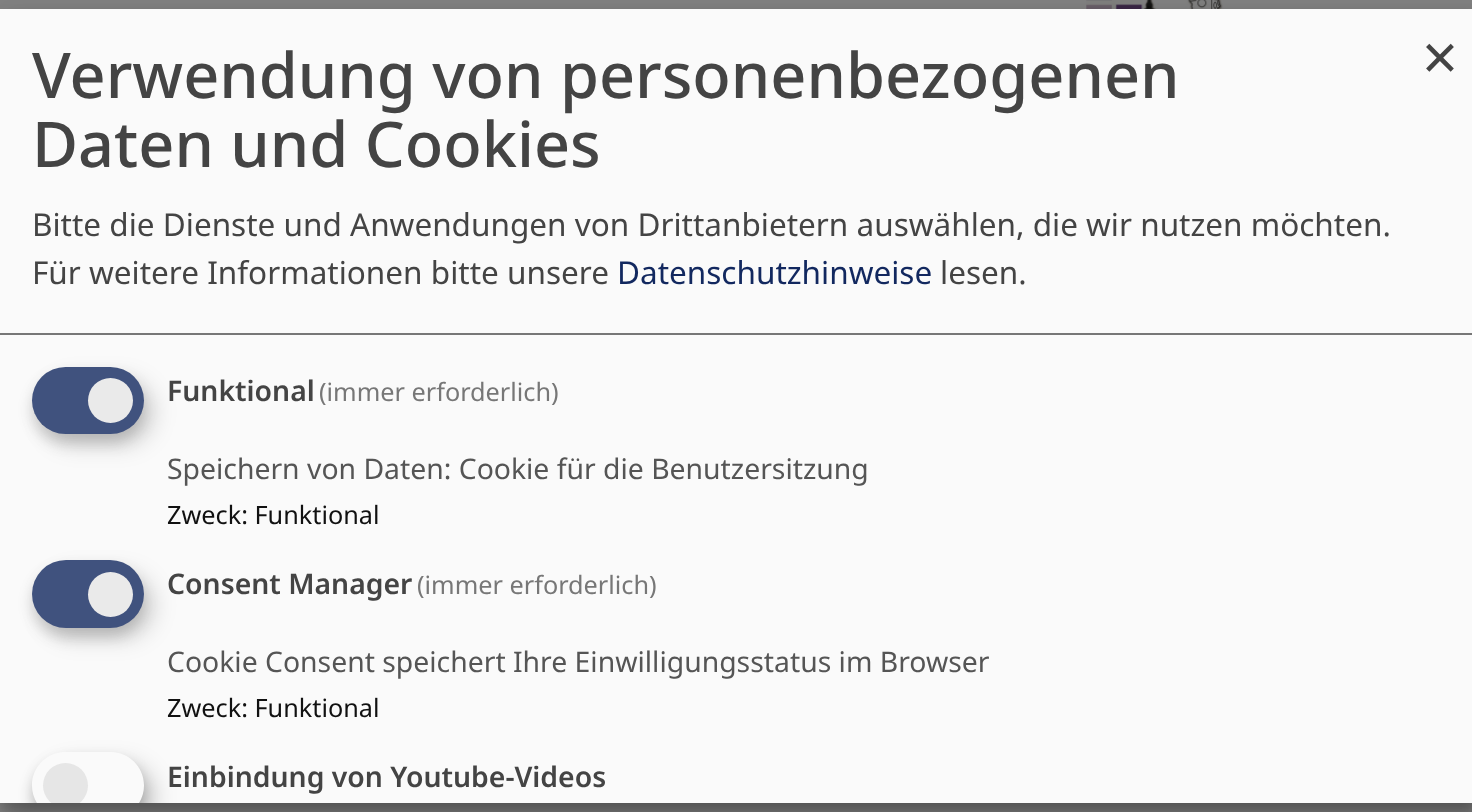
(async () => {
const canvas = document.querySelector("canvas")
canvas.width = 1472
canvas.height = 812
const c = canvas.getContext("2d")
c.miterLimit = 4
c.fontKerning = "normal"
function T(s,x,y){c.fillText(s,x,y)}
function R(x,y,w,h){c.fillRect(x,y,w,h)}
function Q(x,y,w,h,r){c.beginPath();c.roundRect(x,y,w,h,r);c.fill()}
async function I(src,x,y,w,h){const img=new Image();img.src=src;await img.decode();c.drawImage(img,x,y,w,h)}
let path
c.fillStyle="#808080"
R(0,0,1472,812)
await I("1.png",1086,0,220,9)
c.fillStyle="#00000030"
c.filter="blur(11px)"
c.beginPath()
c.rect(11,20,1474,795)
c.fill()
c.filter="none"
c.fillStyle="#00000033"
c.filter="blur(7px)"
c.beginPath()
c.rect(0,18,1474,794)
c.fill()
c.filter="none"
c.fillStyle="#fafafa"
R(0,9,1472,794)
c.fillStyle="#777"
R(0,333,1472,2)
c.font="500 63px Noto Sans"
c.fillStyle="#444"
T("Verwendung von personenbezogenen",32,98)
T("Daten und Cookies",32,167)
c.font="31.5px Noto Sans"
T("Bitte die Dienste und Anwendungen von Drittanbietern auswählen, die wir nutzen möchten.",32,236)
T("Für weitere Informationen bitte unsere",32,284)
c.fillStyle="#12285f"
T("Datenschutzhinweise",617,284)
c.fillStyle="#444"
T("lesen.",940,284)
c.font="63px Noto Sans"
T("×",1422,80)
c.fillStyle="#00000026"
c.filter="blur(11px)"
c.beginPath()
c.roundRect(43,378,112,68,34)
c.fill()
c.filter="none"
c.fillStyle="#32323233"
c.filter="blur(7px)"
c.beginPath()
c.roundRect(32,376,112,67,33.5)
c.fill()
c.filter="none"
c.fillStyle="#40527e"
Q(32,367,112,67,33.5)
c.fillStyle="#eaeaea"
c.beginPath()
c.arc(110.5,400.5,22.5,0,7)
c.fill()
c.font="600 28.35px Noto Sans"
c.fillStyle="#444"
T("Funktional",167,401)
c.font="25.25px Noto Sans"
c.fillStyle="#777"
T("(immer erforderlich)",319,401)
c.font="28.35px Noto Sans"
c.fillStyle="#555"
T("Speichern von Daten: Cookie für die Benutzersitzung",167,479)
c.font="25.25px Noto Sans"
c.fillStyle="#111"
T("Zweck: Funktional",167,524)
c.fillStyle="#00000026"
c.filter="blur(11px)"
c.beginPath()
c.roundRect(43,572,112,67,33.5)
c.fill()
c.filter="none"
c.fillStyle="#32323233"
c.filter="blur(7px)"
c.beginPath()
c.roundRect(32,569,112,68,34)
c.fill()
c.filter="none"
c.fillStyle="#40527e"
Q(32,560,112,68,34)
c.fillStyle="#eaeaea"
c.beginPath()
c.arc(110.5,594.5,22.5,0,7)
c.fill()
c.font="600 28.35px Noto Sans"
c.fillStyle="#444"
T("Consent Manager",167,594)
c.font="25.25px Noto Sans"
c.fillStyle="#777"
T("(immer erforderlich)",417,594)
c.font="28.35px Noto Sans"
c.fillStyle="#555"
T("Cookie Consent speichert Ihre Einwilligungsstatus im Browser",167,672)
c.font="25.25px Noto Sans"
c.fillStyle="#111"
T("Zweck: Funktional",167,717)
c.save()
c.beginPath()
c.rect(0,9,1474,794)
c.clip()
path = new Path2D("M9 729h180v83h-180zm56.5 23h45c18.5 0 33.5 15 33.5 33.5c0 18.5-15 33.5-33.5 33.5h-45c-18.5 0-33.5-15-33.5-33.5c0-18.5 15-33.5 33.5-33.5z")
c.clip(path,"evenodd")
c.fillStyle="#00000030"
c.filter="blur(11px)"
c.beginPath()
c.roundRect(43,763,112,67,33.5)
c.fill()
c.filter="none"
c.restore()
c.save()
c.beginPath()
c.rect(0,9,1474,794)
c.clip()
path = new Path2D("M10 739h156v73h-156zm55.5 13h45c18.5 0 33.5 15 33.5 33.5c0 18.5-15 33.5-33.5 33.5h-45c-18.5 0-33.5-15-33.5-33.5c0-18.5 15-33.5 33.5-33.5z")
c.clip(path,"evenodd")
c.fillStyle="#00000033"
c.filter="blur(7px)"
c.beginPath()
c.roundRect(32,761,112,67,33.5)
c.fill()
c.filter="none"
c.restore()
c.save()
c.beginPath()
c.rect(0,9,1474,794)
c.clip()
c.fillStyle="#e6e6e6"
c.beginPath()
c.arc(65.5,785.5,22.5,0,7)
c.fill()
c.restore()
c.font="600 28.35px Noto Sans"
c.fillStyle="#444"
T("Einbindung von Youtube-Videos",167,787)
})()
